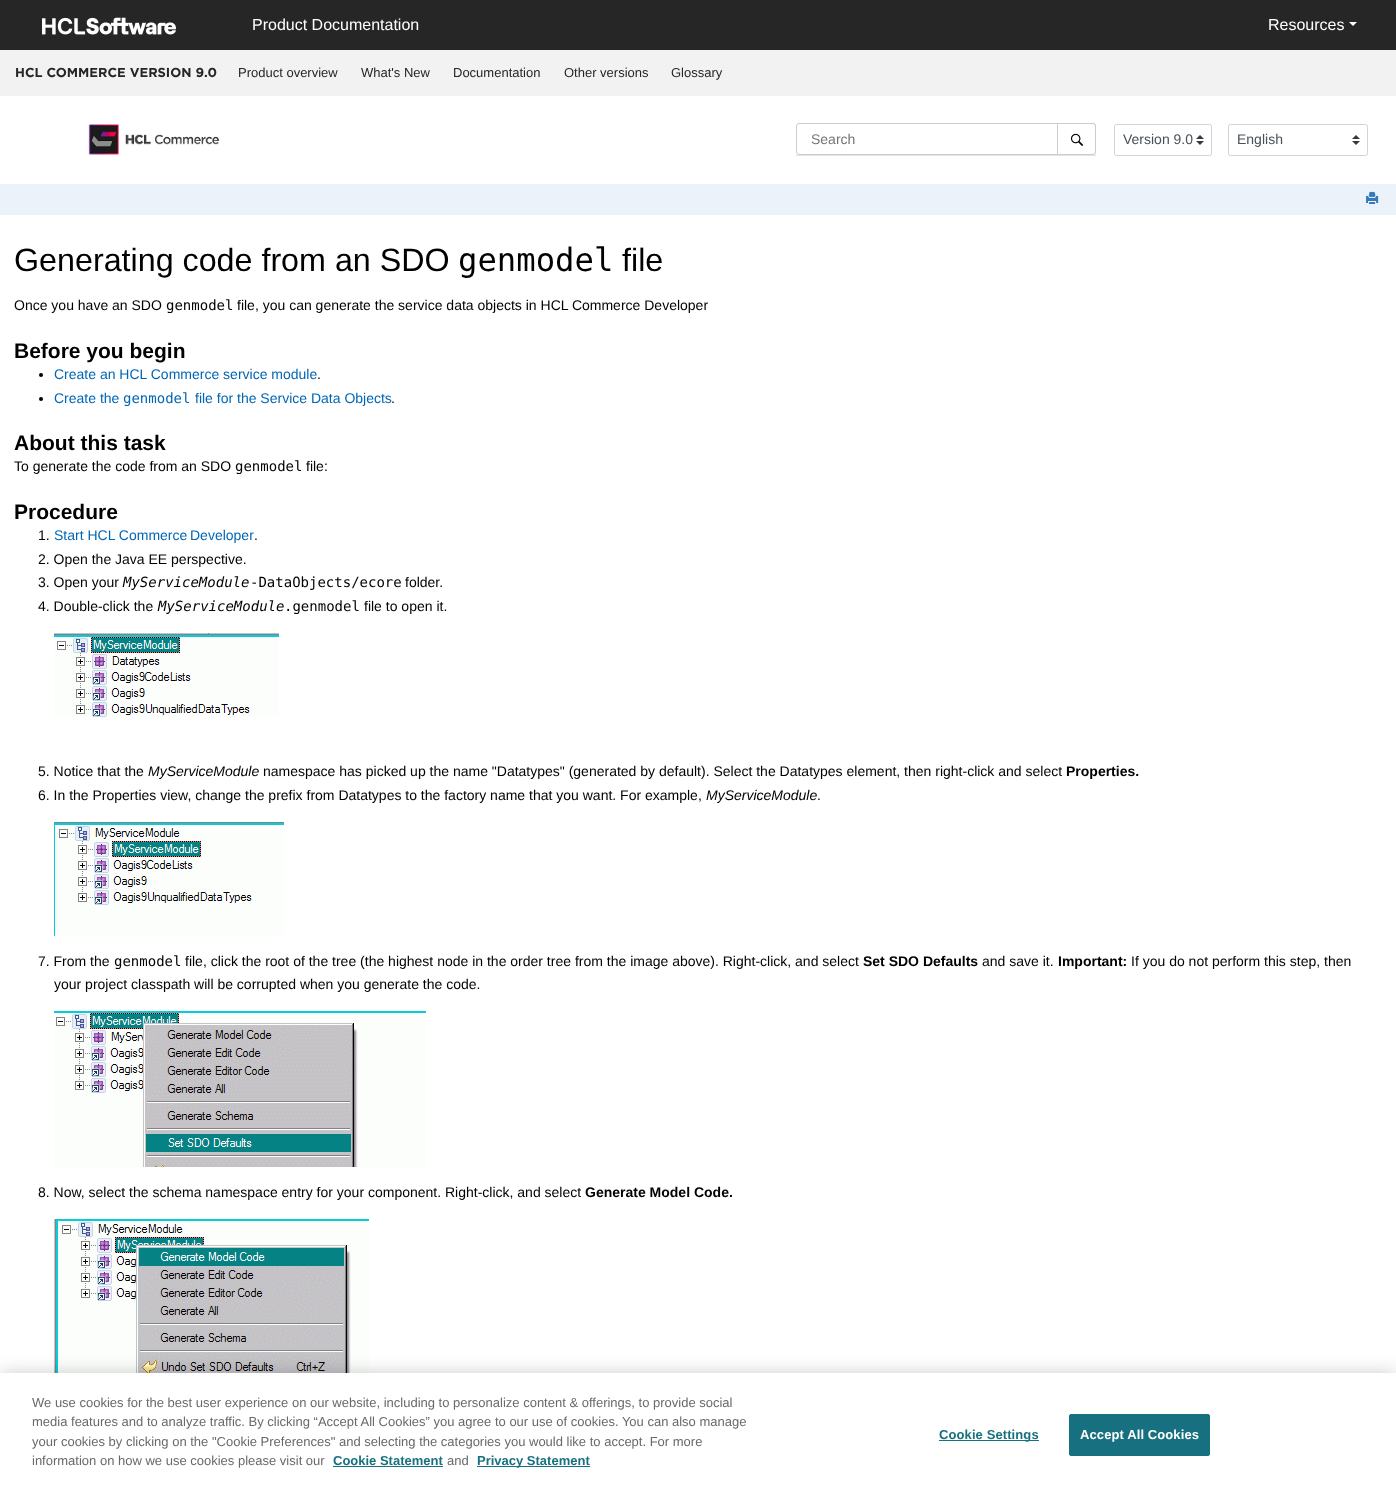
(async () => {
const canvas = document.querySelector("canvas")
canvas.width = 1396
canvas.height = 1494
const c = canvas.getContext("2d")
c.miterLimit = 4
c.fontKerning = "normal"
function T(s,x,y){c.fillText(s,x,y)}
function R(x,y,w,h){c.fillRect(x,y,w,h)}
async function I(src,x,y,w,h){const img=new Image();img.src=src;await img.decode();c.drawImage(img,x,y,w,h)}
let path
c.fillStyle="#fff"
R(0,0,1396,1494)
c.fillStyle="#262626"
R(0,0,1396,50)
await I("1.png",42,17,134,18)
c.font="16px Liberation Sans"
c.fillStyle="#fff"
T("Product Documentation",252,30)
T("Resources",1268,30)
path = new Path2D("M1349 22h8l-4 4z")
c.fill(path)
c.fillStyle="#f2f2f2"
R(0,50,1396,46)
c.font="bold 13px Gotham"
c.fillStyle="#262626"
T("HCL COMMERCE VERSION 9.0",15,77)
c.font="13px Liberation Sans"
T("Product overview",238,77)
T("What's New",361,77)
T("Documentation",453,77)
T("Other versions",564,77)
T("Glossary",671,77)
await I("2.png",88,124,132,31)
c.fillStyle="#dee5e7"
R(796,155,300,1)
c.beginPath()
c.roundRect(796.5,123.5,299,31,2.5)
c.strokeStyle="#ccc"
c.stroke()
c.font="14px Liberation Sans"
c.fillStyle="#757575"
T("Search",811,144)
c.fillStyle="#fff"
c.beginPath()
c.roundRect(1057.5,123.5,38,31,[0,2.5,2.5,0])
c.fill()
c.stroke()
await I("3.png",1070,133,14,13)
await I("4.png",1196,135,8,10)
c.beginPath()
c.roundRect(1114.5,124.5,97,31,2)
c.strokeStyle="#ced4da"
c.stroke()
c.fillStyle="#495057"
T("Version 9.0",1123,144)
await I("4.png",1352,135,8,10)
c.beginPath()
c.roundRect(1228.5,124.5,139,31,2)
c.stroke()
T("English",1237,144)
c.fillStyle="#ecf2f9"
R(0,184,1396,31)
await I("5.png",1366,191,13,13)
c.font="32.25px Liberation Sans"
c.fillStyle="#000"
T("Generating code from an SDO",14,271)
c.font="32.25px DejaVu Sans Mono"
T("genmodel",458,271)
c.font="32.25px Liberation Sans"
T("file",622,271)
c.font="14px Liberation Sans"
T("Once you have an SDO",14,310)
c.font="14px DejaVu Sans Mono"
T("genmodel",166,310)
c.font="14px Liberation Sans"
T("file, you can generate the service data objects in HCL Commerce Developer",237,310)
c.font="bold 21px Liberation Sans"
T("Before you begin",14,358)
c.beginPath()
c.arc(41,375,2,0,7)
c.fill()
c.font="14px Liberation Sans"
c.fillStyle="#0066b3"
T("Create an HCL Commerce service module",54,379)
c.fillStyle="#000"
T(".",317,379)
c.beginPath()
c.arc(41,399,2,0,7)
c.fill()
c.fillStyle="#0066b3"
T("Create the",54,403)
c.font="14px DejaVu Sans Mono"
T("genmodel",123,403)
c.font="14px Liberation Sans"
T("file for the Service Data Objects",195,403)
c.fillStyle="#000"
T(".",391,403)
c.font="bold 21px Liberation Sans"
T("About this task",14,450)
c.font="14px Liberation Sans"
T("To generate the code from an SDO",14,471)
c.font="14px DejaVu Sans Mono"
T("genmodel",235,471)
c.font="14px Liberation Sans"
T("file:",306,471)
c.font="bold 21px Liberation Sans"
T("Procedure",14,519)
c.font="14px Liberation Sans"
T("1.",38,540)
c.fillStyle="#0066b3"
T("Start HCL Commerce",54,540)
T("Developer",190,540)
c.fillStyle="#000"
T(".",254,540)
T("2. Open the Java EE perspective.",38,564)
T("3. Open your",38,587)
c.font="italic 14px DejaVu Sans Mono"
T("MyServiceModule",123,587)
c.font="14px DejaVu Sans Mono"
T("-DataObjects/ecore",250,587)
c.font="14px Liberation Sans"
T("folder.",405,587)
T("4. Double-click the",38,611)
c.font="italic 14px DejaVu Sans Mono"
T("MyServiceModule",158,611)
c.font="14px DejaVu Sans Mono"
T(".genmodel",284,611)
c.font="14px Liberation Sans"
T("file to open it.",364,611)
await I("6.png",54,633,225,84)
T("5. Notice that the",38,776)
c.font="italic 14px Liberation Sans"
T("MyServiceModule",148,776)
c.font="14px Liberation Sans"
T("namespace has picked up the name \"Datatypes\" (generated by default). Select the Datatypes element, then right-click and select",263,776)
c.font="bold 14px Liberation Sans"
T("Properties.",1066,776)
c.font="14px Liberation Sans"
T("6. In the Properties view, change the prefix from Datatypes to the factory name that you want. For example,",38,800)
c.font="italic 14px Liberation Sans"
T("MyServiceModule",706,800)
c.font="14px Liberation Sans"
T(".",817,800)
await I("7.png",54,822,230,114)
T("7. From the",38,966)
c.font="14px DejaVu Sans Mono"
T("genmodel",114,966)
c.font="14px Liberation Sans"
T("file, click the root of the tree (the highest node in the order tree from the image above). Right-click, and select",185,966)
c.font="bold 14px Liberation Sans"
T("Set SDO Defaults",863,966)
c.font="14px Liberation Sans"
T("and save it.",982,966)
c.font="bold 14px Liberation Sans"
T("Important:",1058,966)
c.font="14px Liberation Sans"
T("If you do not perform this step, then",1131,966)
T("your project classpath will be corrupted when you generate the code.",54,989)
await I("8.png",54,1011,372,156)
T("8. Now, select the schema namespace entry for your component. Right-click, and select",38,1197)
c.font="bold 14px Liberation Sans"
T("Generate Model Code.",585,1197)
await I("9.png",54,1219,315,154)
c.fillStyle="#00000033"
c.filter="blur(9px)"
c.beginPath()
c.rect(0,1373,1396,121)
c.fill()
c.filter="none"
c.fillStyle="#fff"
R(0,1373,1396,121)
c.font="13px Liberation Sans"
c.fillStyle="#696969"
T("We use cookies for the best user experience on our website, including to personalize content & offerings, to provide social",32,1407)
T("media features and to analyze traffic. By clicking “Accept All Cookies” you agree to our use of cookies. You can also manage",32,1426)
T("your cookies by clicking on the \"Cookie Preferences\" and selecting the categories you would like to accept. For more",32,1446)
T("information on how we use cookies please visit our",32,1465)
c.font="bold 13px Liberation Sans"
c.fillStyle="#17707f"
T("Cookie Statement",333,1465)
R(333,1466,110,1)
c.font="13px Liberation Sans"
c.fillStyle="#696969"
T("and",447,1465)
c.fillStyle="#17707f"
R(477,1466,113,1)
c.font="bold 13px Liberation Sans"
T("Privacy Statement",477,1465)
R(939,1440,100,1)
c.letterSpacing="0.1px"
T("Cookie Settings",939,1439)
c.beginPath()
c.roundRect(1069.5,1414.5,140,41,1.5)
c.fill()
c.strokeStyle="#17707f"
c.stroke()
c.fillStyle="#fff"
T("Accept All Cookies",1080,1439)
})()
